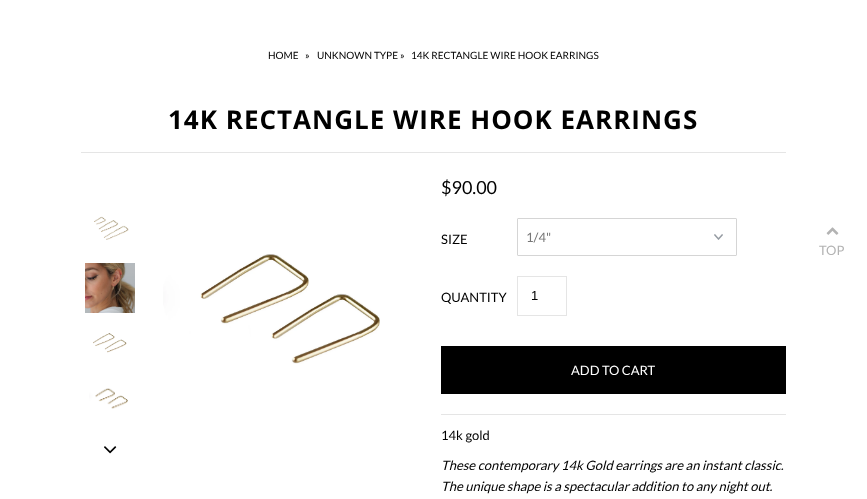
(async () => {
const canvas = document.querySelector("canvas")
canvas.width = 867
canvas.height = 499
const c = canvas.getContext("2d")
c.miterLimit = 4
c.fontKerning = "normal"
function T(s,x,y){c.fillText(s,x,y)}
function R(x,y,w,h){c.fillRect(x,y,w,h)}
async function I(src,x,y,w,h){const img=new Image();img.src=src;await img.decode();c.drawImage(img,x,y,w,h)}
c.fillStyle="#fff"
R(0,0,867,499)
c.font="10px Lato"
c.fillStyle="#000"
T("HOME",268,59)
T("»",305,59)
T("UNKNOWN TYPE »",317,59)
T("14K RECTANGLE WIRE HOOK EARRINGS",411,59)
c.fillStyle="#e5e5e5"
R(81,152,705,1)
c.letterSpacing="1px"
c.font="bold 26px Open Sans"
c.fillStyle="#000"
T("14K RECTANGLE WIRE HOOK EARRINGS",168,129)
await I("1.png",94,216,35,24)
await I("2.png",85,263,50,50)
await I("3.png",93,333,34,20)
await I("4.png",89,388,39,21)
await I("5.png",104,446,13,8)
await I("6.png",163,254,217,110)
c.letterSpacing="0px"
c.font="18px Lato"
T("$90.00",441,194)
c.fillStyle="#e5e5e5"
R(441,414,345,1)
c.font="13px Lato"
c.fillStyle="#000"
T("SIZE",441,244)
await I("7.png",714,234,9,6)
c.beginPath()
c.roundRect(517.5,218.5,219,37,.5)
c.strokeStyle="#d5d5d5"
c.stroke()
c.fillStyle="#777"
T("1/4\"",526,242)
c.fillStyle="#000"
T("QUANTITY",441,302)
c.strokeStyle="#e5e5e5"
c.strokeRect(517.5,276.5,49,39)
c.font="13px Liberation Sans"
T("1",531,300)
R(441,346,345,48)
c.font="13px Lato"
c.fillStyle="#fff"
T("ADD TO CART",571,375)
c.fillStyle="#000"
T("14k gold",441,440)
c.font="italic 13px Lato"
T("These contemporary 14k Gold earrings are an instant classic.",441,470)
T("The unique shape is a spectacular addition to any night out.",441,491)
await I("8.png",826,227,13,8)
c.font="13px Lato"
c.fillStyle="#b3b3b3"
T("TOP",819,255)
})()
